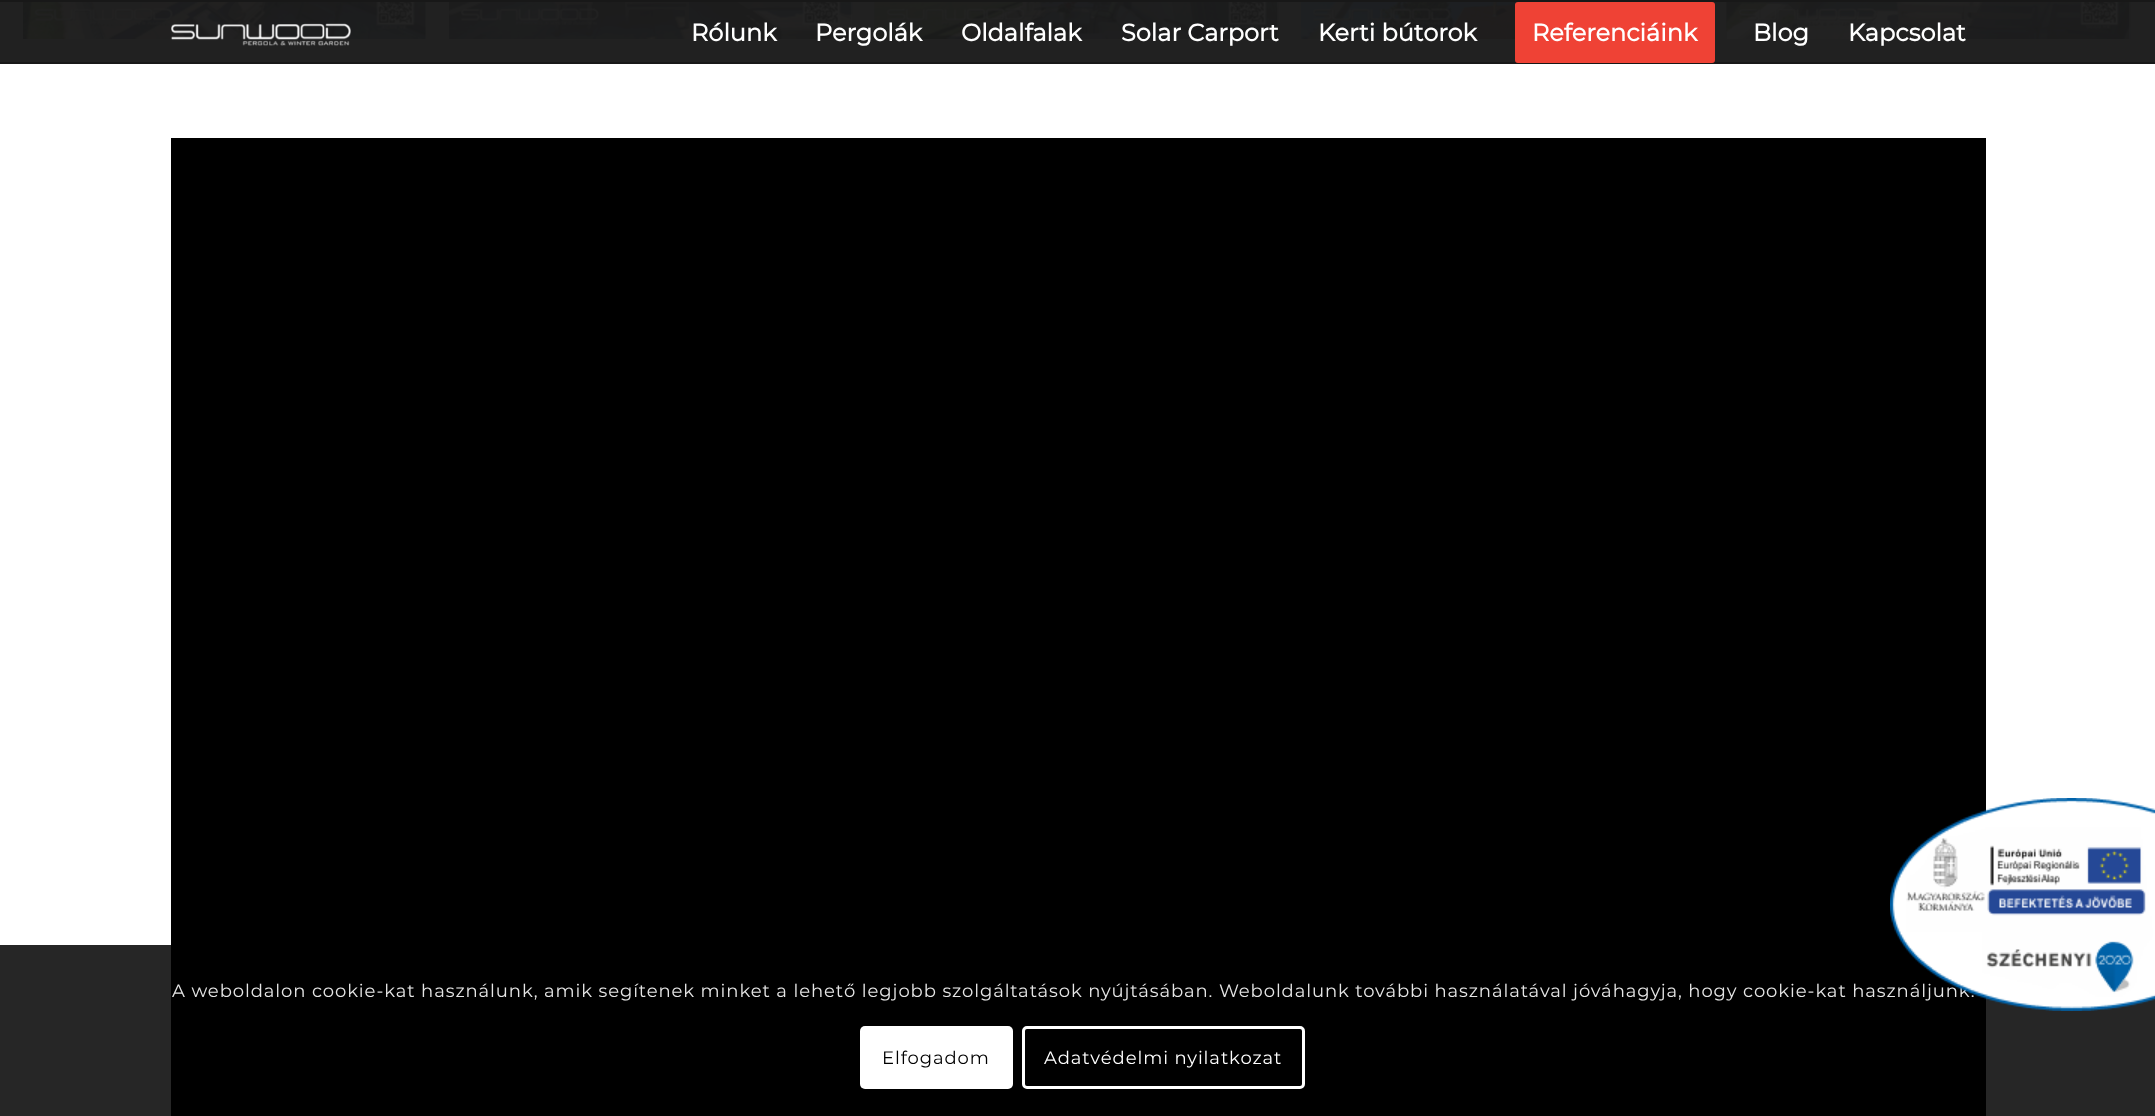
(async () => {
const canvas = document.querySelector("canvas")
canvas.width = 2155
canvas.height = 1116
const c = canvas.getContext("2d")
c.miterLimit = 4
c.fontKerning = "normal"
function T(s,x,y){c.fillText(s,x,y)}
function R(x,y,w,h){c.fillRect(x,y,w,h)}
function Q(x,y,w,h,r){c.beginPath();c.roundRect(x,y,w,h,r);c.fill()}
async function I(src,x,y,w,h){const img=new Image();img.src=src;await img.decode();c.drawImage(img,x,y,w,h)}
c.fillStyle="#212121"
R(0,0,2155,1116)
c.fillStyle="#242424"
R(23,2,403,37)
await I("1.png",23,2,403,37)
R(449,2,403,37)
await I("2.png",449,2,404,37)
R(875,2,403,37)
await I("3.png",874,2,405,37)
await I("4.png",1301,2,217,37)
R(1727,2,403,37)
await I("5.png",1726,2,405,37)
c.fillStyle="#fff"
R(0,64,2155,881)
c.fillStyle="#262626"
R(0,945,2155,171)
c.fillStyle="#000"
R(171,138,1815,978)
c.fillStyle="#181818"
R(0,0,2155,2)
R(0,62,2155,2)
await I("6.png",171,23,180,23)
c.font="bold 24px Montserrat"
c.fillStyle="#fff"
T("Rólunk",691,41)
T("Pergolák",815,41)
T("Oldalfalak",961,41)
T("Solar Carport",1121,41)
T("Kerti bútorok",1318,41)
c.fillStyle="#ef4235"
c.beginPath()
c.roundRect(1516.5,3.5,197,58,1.5)
c.fill()
c.strokeStyle="#ef4235"
c.lineWidth=3
c.stroke()
c.fillStyle="#fff"
T("Referenciáink",1532,41)
T("Blog",1753,41)
T("Kapcsolat",1848,41)
c.letterSpacing="0.9px"
c.font="100 18px Montserrat"
c.fillStyle="#e6e6e6"
T("A weboldalon cookie-kat használunk, amik segítenek minket a lehető legjobb szolgáltatások nyújtásában. Weboldalunk további használatával jóváhagyja, hogy cookie-kat használjunk.",172,997)
await I("7.png",1890,798,265,213)
c.fillStyle="#fff"
Q(860,1026,153,63,5)
c.fillStyle="#000"
T("Elfogadom",882,1064)
c.beginPath()
c.roundRect(1023.5,1027.5,280,60,3.5)
c.strokeStyle="#fff"
c.stroke()
c.fillStyle="#fff"
T("Adatvédelmi nyilatkozat",1044,1064)
})()
